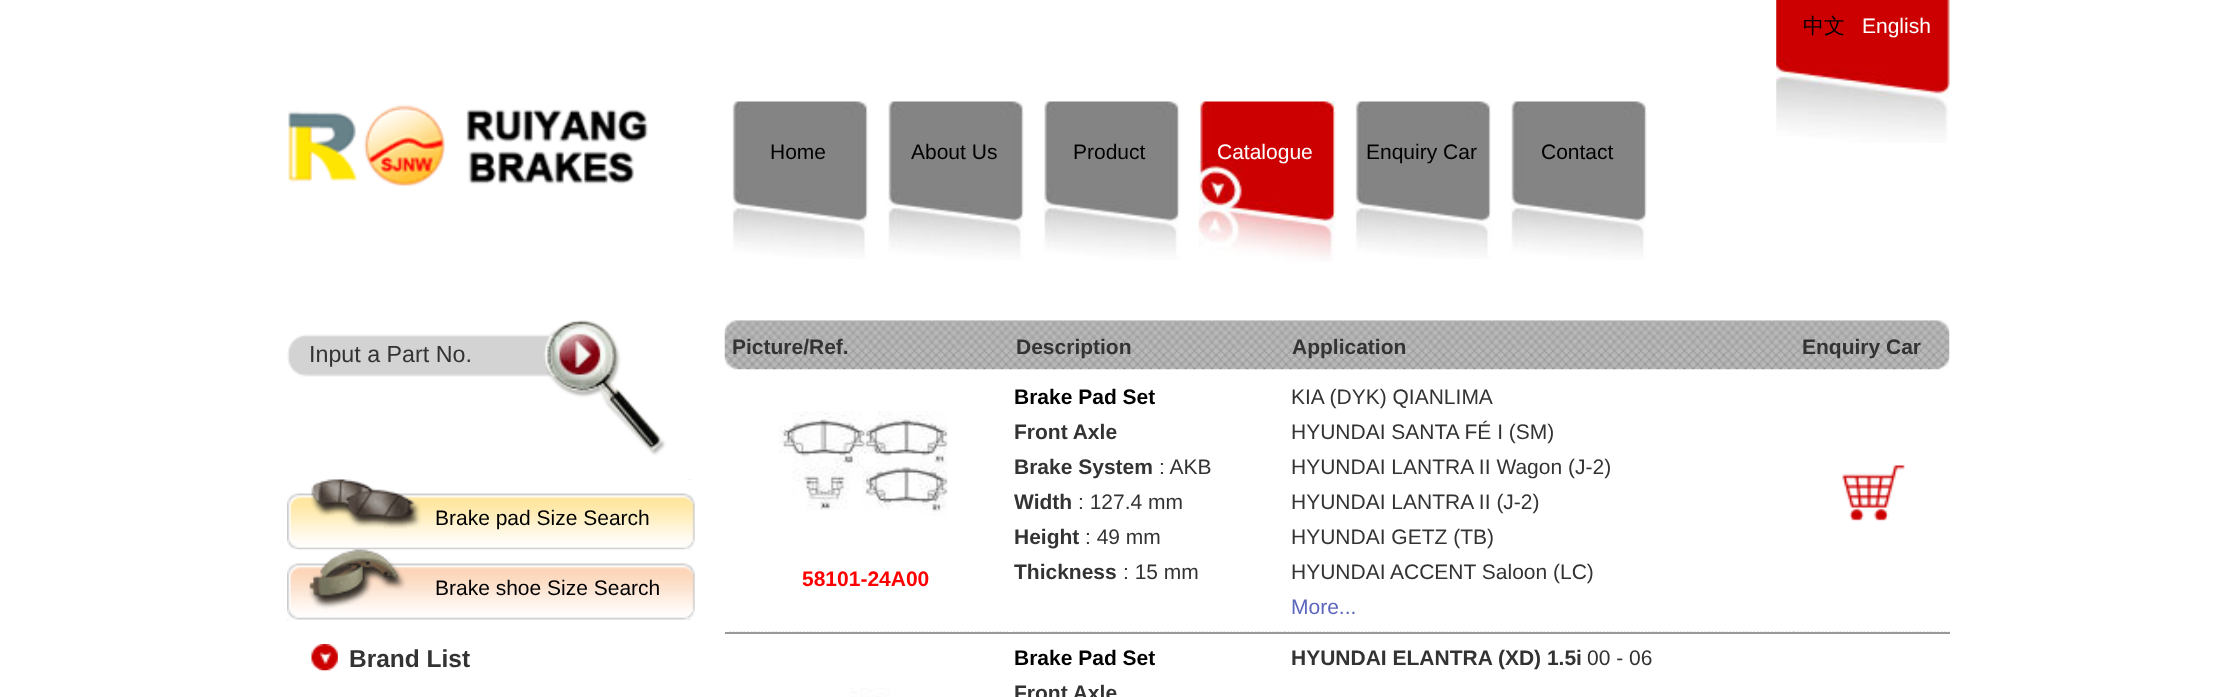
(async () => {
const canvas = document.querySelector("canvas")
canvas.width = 2234
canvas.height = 697
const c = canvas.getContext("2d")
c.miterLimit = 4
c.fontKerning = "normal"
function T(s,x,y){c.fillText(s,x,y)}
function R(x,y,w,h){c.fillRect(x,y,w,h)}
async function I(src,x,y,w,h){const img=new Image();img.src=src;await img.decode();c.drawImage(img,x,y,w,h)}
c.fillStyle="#fff"
R(0,0,2234,697)
await I("1.png",1776,0,174,143)
c.font="500 21px WenQuanYi Zen Hei"
c.fillStyle="#000"
T("中文",1803,33)
c.font="21px Liberation Sans"
c.fillStyle="#fff"
T("English",1862,33)
await I("2.png",288,104,360,82)
await I("3.png",732,101,136,158)
c.fillStyle="#000"
T("Home",770,159)
await I("4.png",887,101,137,159)
T("About Us",911,159)
await I("5.png",1043,101,137,159)
T("Product",1073,159)
await I("6.png",1198,101,138,161)
c.fillStyle="#fff"
T("Catalogue",1217,159)
await I("3.png",1355,101,136,158)
c.fillStyle="#000"
T("Enquiry Car",1366,159)
await I("4.png",1510,101,137,159)
T("Contact",1541,159)
await I("7.png",287,320,379,136)
c.font="23.25px Liberation Sans"
c.fillStyle="#333"
T("Input a Part No.",309,362)
await I("8.png",287,479,405,141)
await I("9.png",287,479,408,71)
c.font="21px Liberation Sans"
c.fillStyle="#000"
T("Brake pad Size Search",435,525)
await I("10.png",287,549,408,71)
T("Brake shoe Size Search",435,595)
await I("11.png",311,644,27,27)
c.font="bold 24.5px Liberation Sans"
c.fillStyle="#333"
T("Brand List",349,667)
await I("12.png",724,320,1226,312)
c.font="bold 21px Liberation Sans"
T("Picture/Ref.",732,354)
T("Description",1016,354)
T("Application",1292,354)
T("Enquiry Car",1802,354)
c.fillStyle="#000"
T("Brake Pad Set",1014,404)
c.fillStyle="#333"
T("Front Axle",1014,439)
T("Brake System",1014,474)
c.font="21px Liberation Sans"
T(": AKB",1159,474)
c.font="bold 21px Liberation Sans"
T("Width",1014,509)
c.font="21px Liberation Sans"
T(": 127.4 mm",1078,509)
c.font="bold 21px Liberation Sans"
T("Height",1014,544)
c.font="21px Liberation Sans"
T(": 49 mm",1085,544)
c.font="bold 21px Liberation Sans"
T("Thickness",1014,579)
c.font="21px Liberation Sans"
T(": 15 mm",1123,579)
T("KIA (DYK) QIANLIMA",1291,404)
T("HYUNDAI SANTA FÉ I (SM)",1291,439)
T("HYUNDAI LANTRA II Wagon (J-2)",1291,474)
T("HYUNDAI LANTRA II (J-2)",1291,509)
T("HYUNDAI GETZ (TB)",1291,544)
T("HYUNDAI",1291,579)
T("ACCENT Saloon (LC)",1390,579)
c.fillStyle="#5b66bc"
T("More...",1291,614)
c.fillStyle="#999"
R(725,632,1225,2)
await I("13.png",1842,465,63,56)
await I("14.png",779,411,169,105)
c.font="bold 21px Liberation Sans"
c.fillStyle="#f00"
T("58101-24A00",802,586)
c.fillStyle="#000"
T("Brake Pad Set",1014,665)
c.fillStyle="#333"
T("Front Axle",1014,700)
T("HYUNDAI ELANTRA (XD) 1.5i",1291,665)
c.font="21px Liberation Sans"
T("00 - 06",1587,665)
await I("15.png",850,688,40,9)
})()
